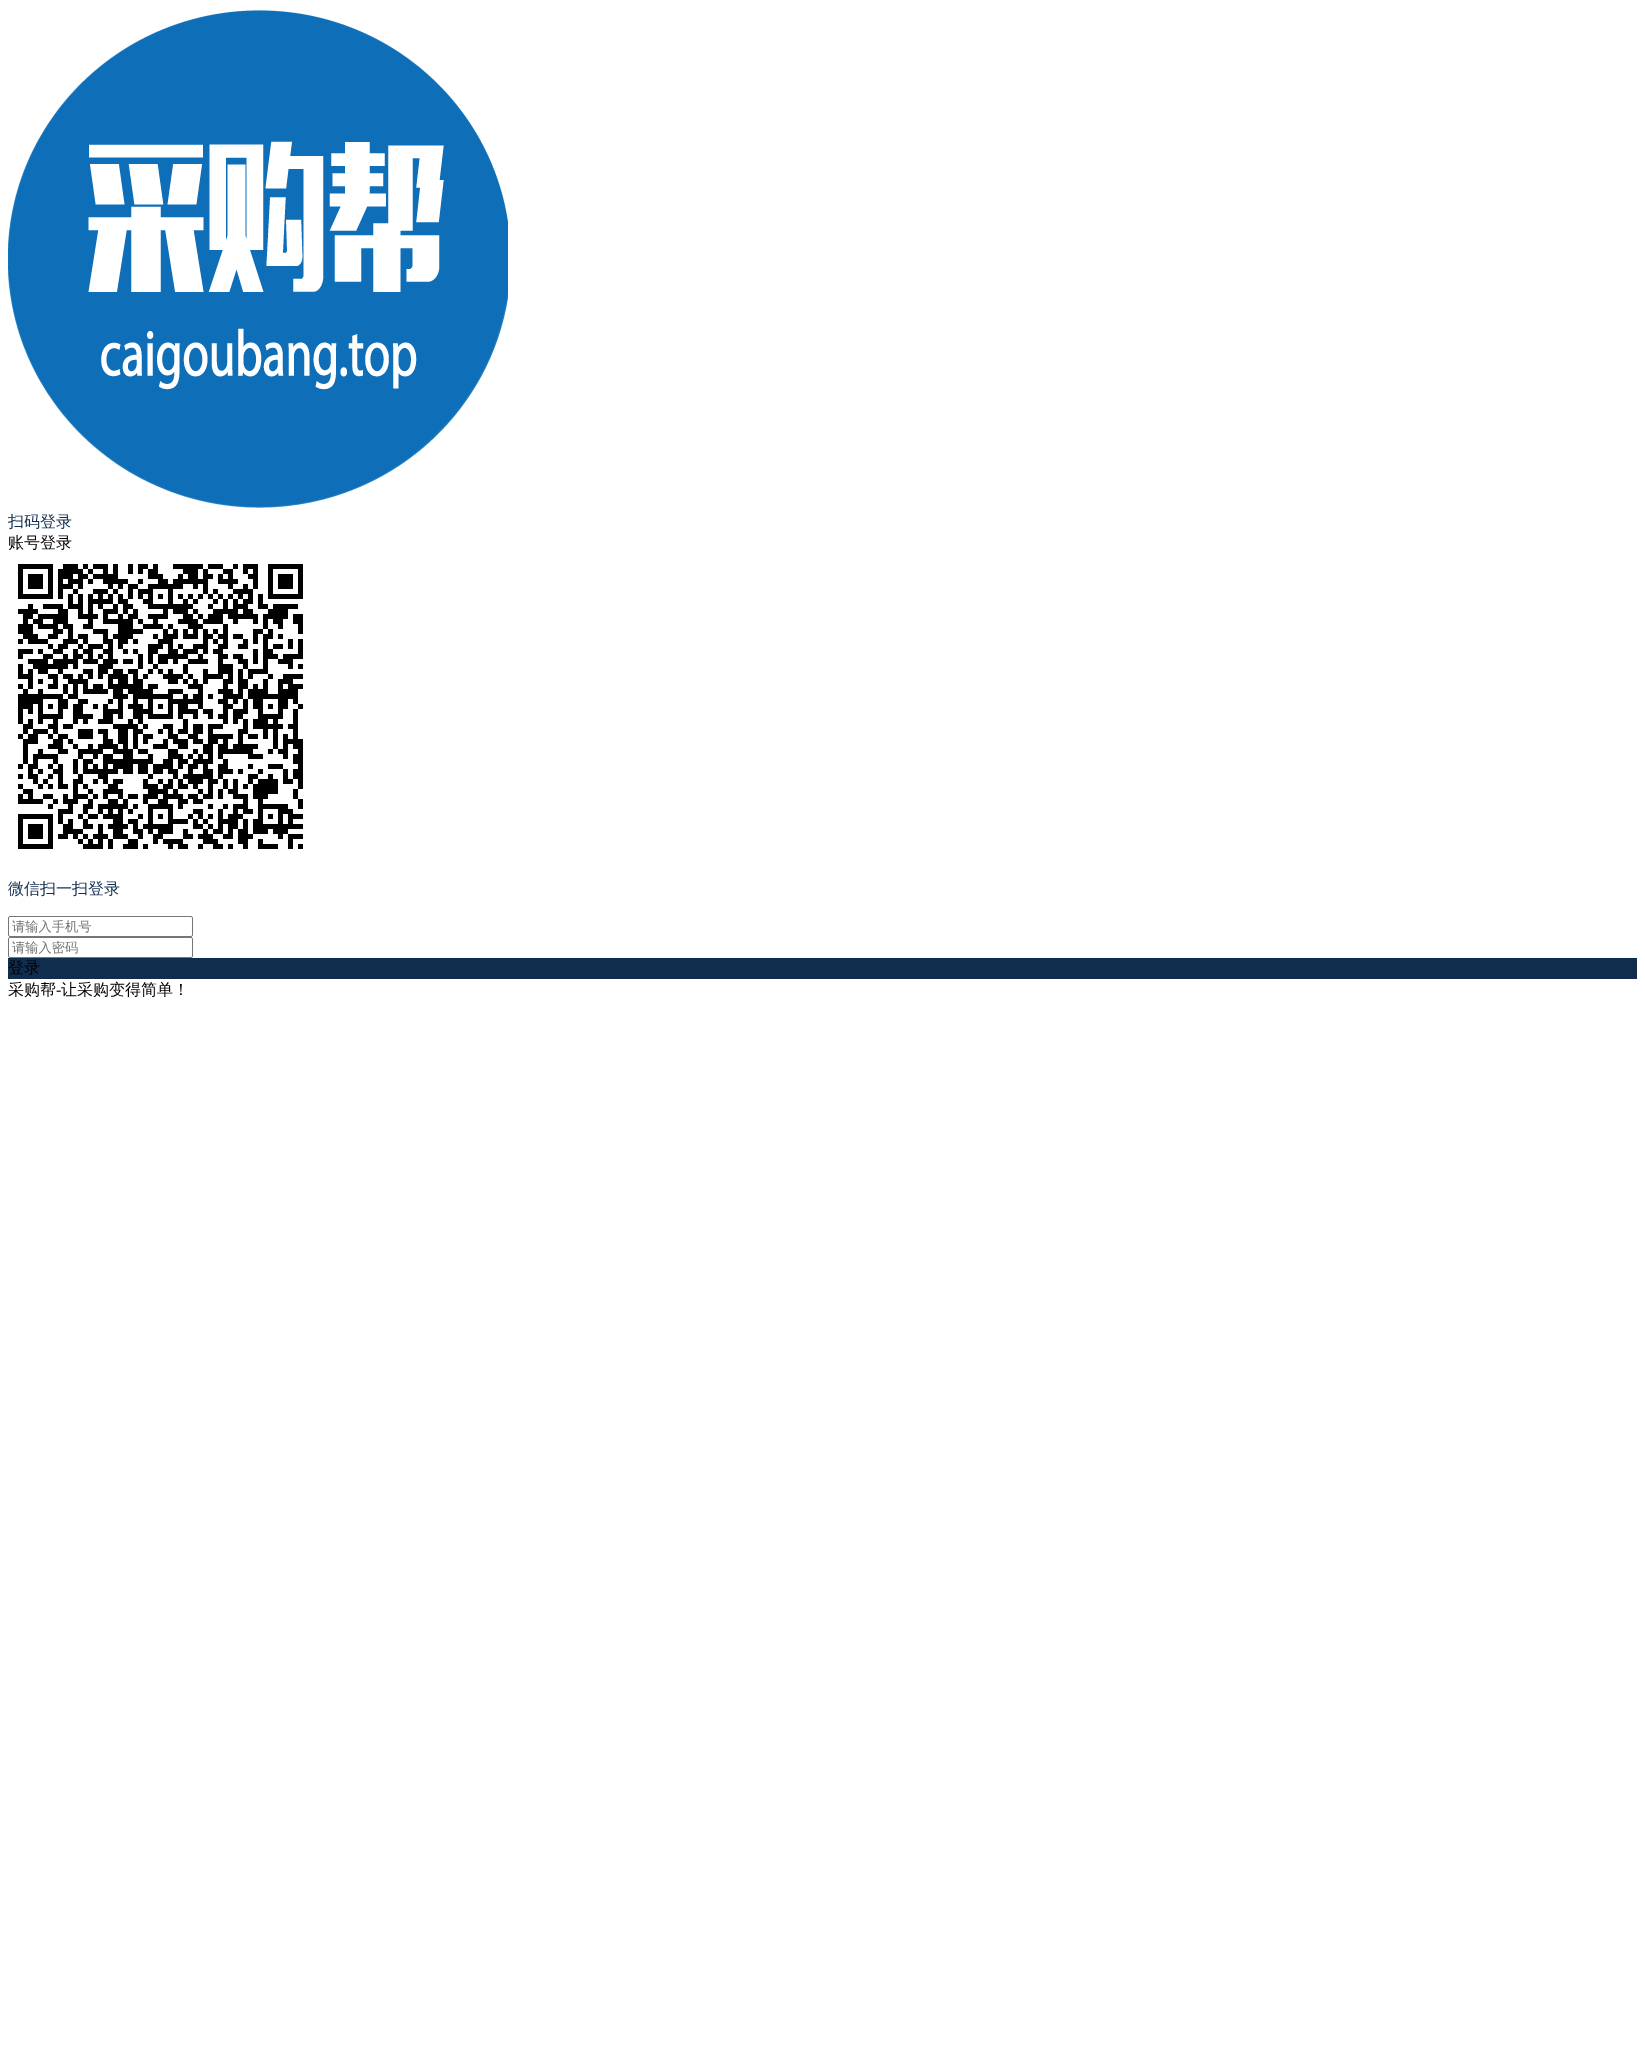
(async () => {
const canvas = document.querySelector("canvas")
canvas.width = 1645
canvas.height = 2062
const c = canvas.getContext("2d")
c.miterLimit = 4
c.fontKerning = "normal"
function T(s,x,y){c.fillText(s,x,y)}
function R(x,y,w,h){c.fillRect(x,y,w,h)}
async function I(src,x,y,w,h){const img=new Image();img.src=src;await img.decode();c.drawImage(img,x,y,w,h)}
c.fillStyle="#fff"
R(0,0,1645,2062)
await I("1.png",8,10,500,498)
c.font="500 16px WenQuanYi Zen Hei"
c.fillStyle="#112d4e"
T("扫码登录",8,527)
c.fillStyle="#000"
T("账号登录",8,548)
await I("2.png",18,564,285,285)
c.fillStyle="#112d4e"
T("微信扫一扫登录",8,894)
c.beginPath()
c.roundRect(8.5,916.5,184,20,1.5)
c.strokeStyle="#767676"
c.stroke()
c.font="500 13.25px WenQuanYi Zen Hei"
c.fillStyle="#757575"
T("请输入手机号",12,931)
c.beginPath()
c.roundRect(8.5,937.5,184,20,1.5)
c.stroke()
T("请输入密码",12,952)
c.fillStyle="#112d4e"
R(8,958,1629,21)
c.font="500 16px WenQuanYi Zen Hei"
c.fillStyle="#000"
T("登录",8,973)
T("采购帮",8,995)
c.font="16px Liberation Serif"
T("-",56,995)
c.font="500 16px WenQuanYi Zen Hei"
T("让采购变得简单！",61,995)
})()
